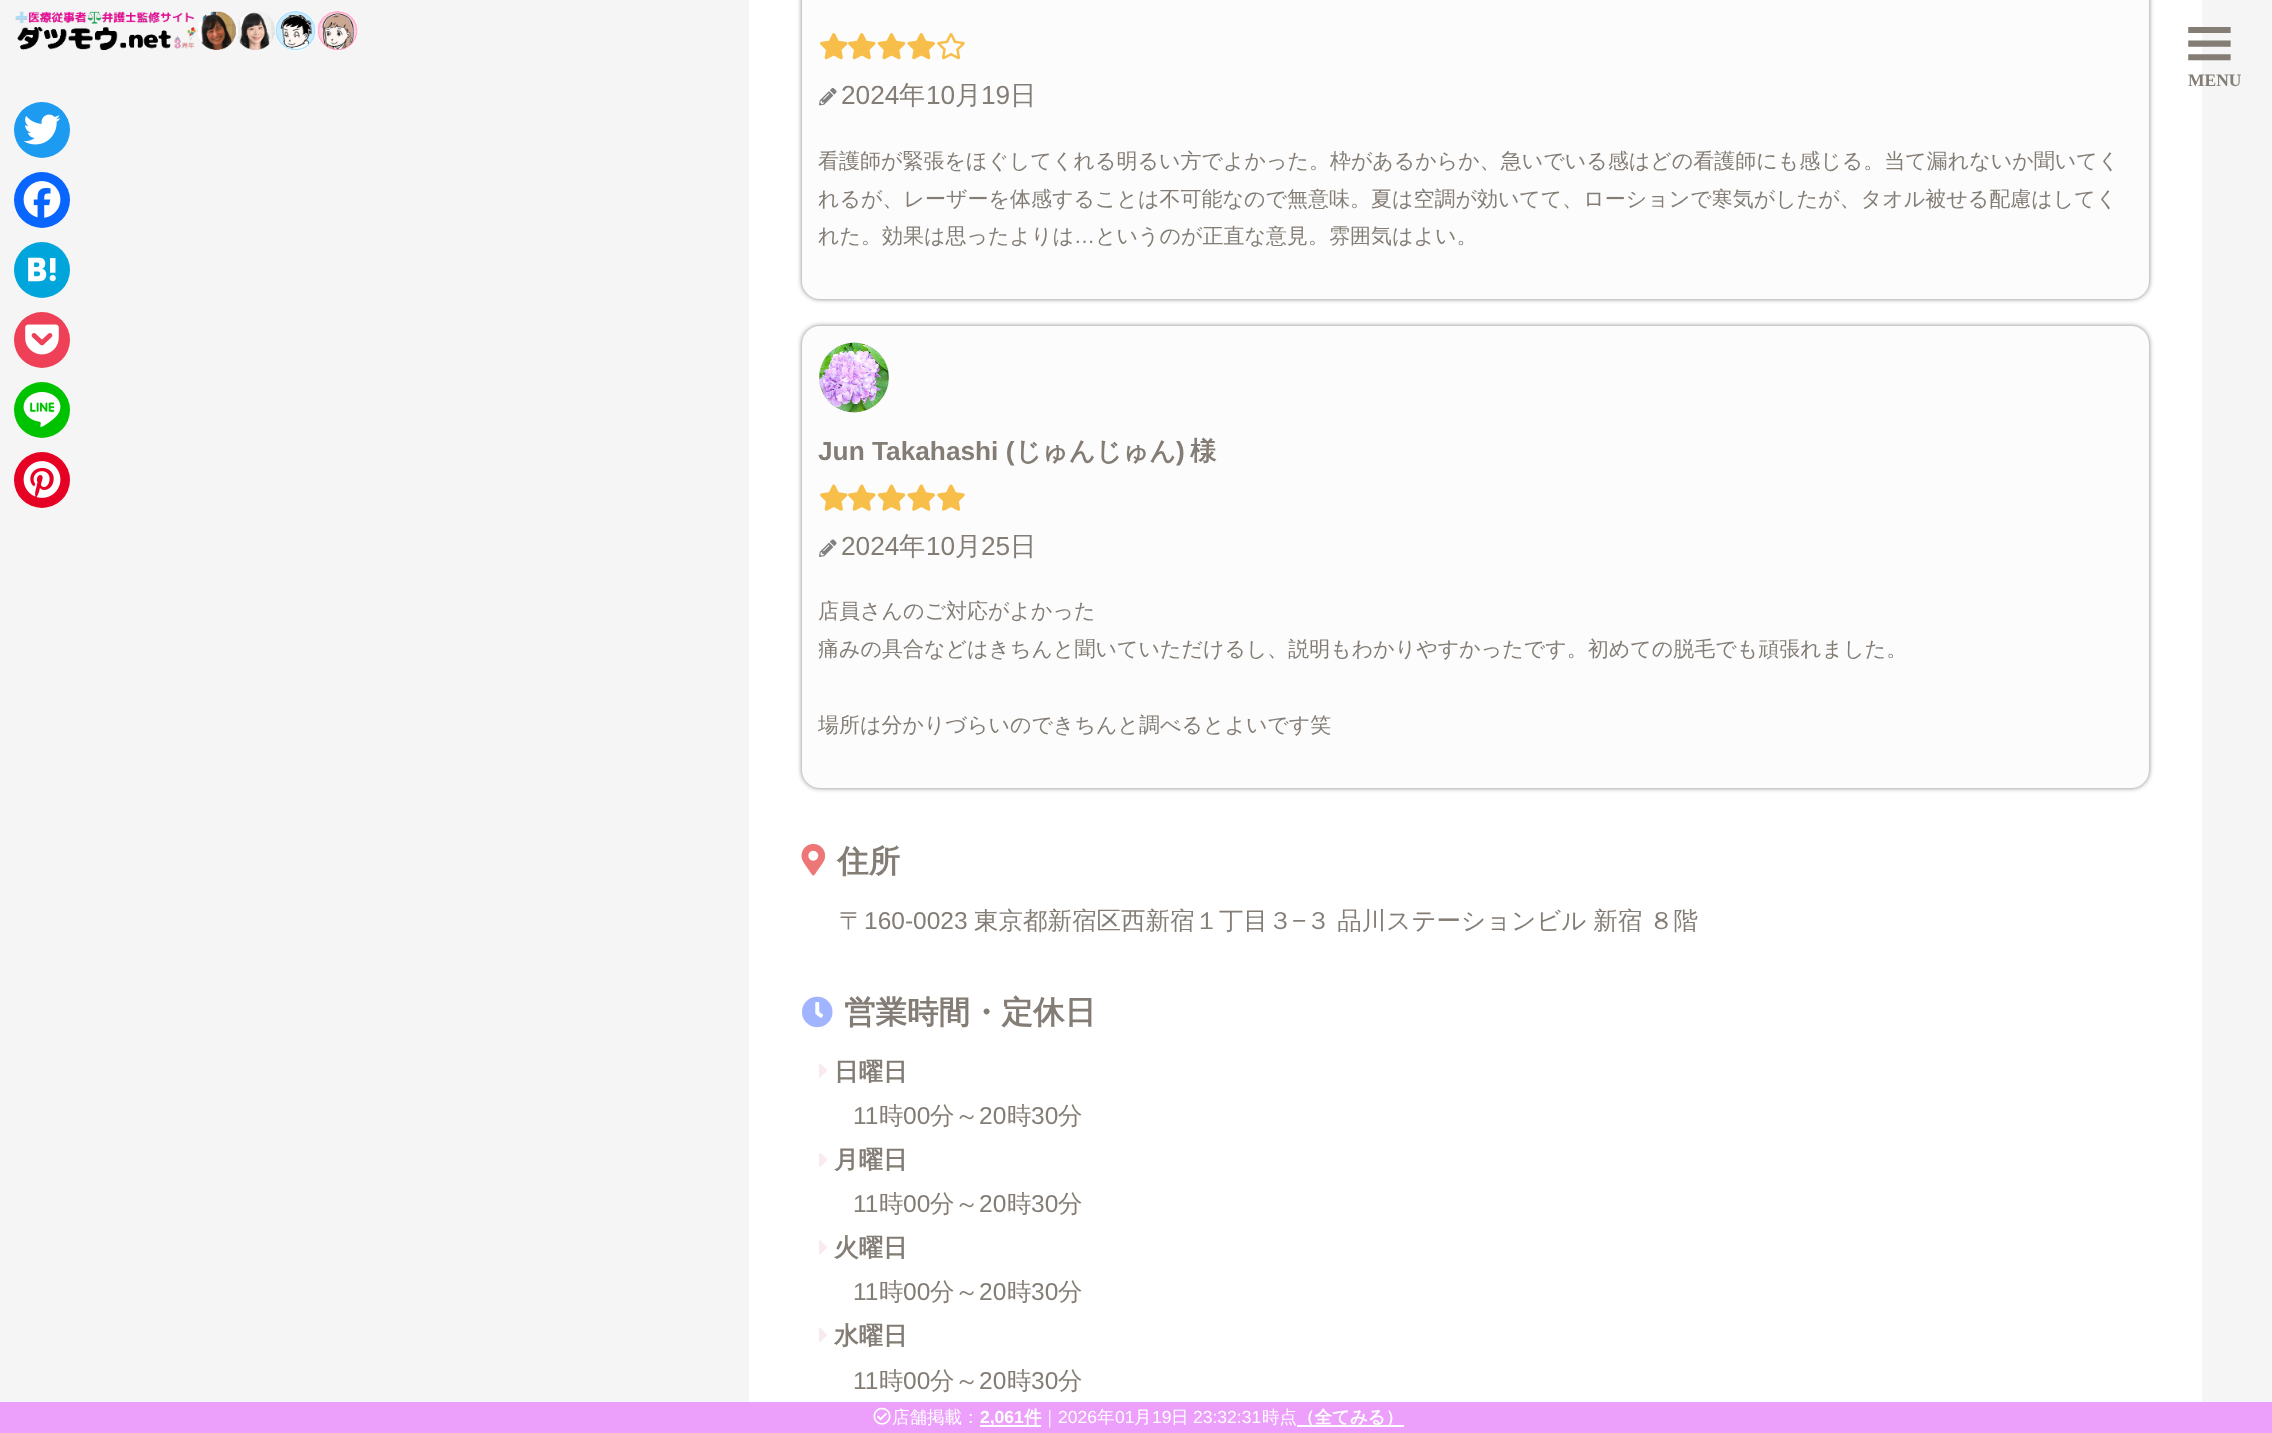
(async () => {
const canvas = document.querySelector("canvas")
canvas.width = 2272
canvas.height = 1433
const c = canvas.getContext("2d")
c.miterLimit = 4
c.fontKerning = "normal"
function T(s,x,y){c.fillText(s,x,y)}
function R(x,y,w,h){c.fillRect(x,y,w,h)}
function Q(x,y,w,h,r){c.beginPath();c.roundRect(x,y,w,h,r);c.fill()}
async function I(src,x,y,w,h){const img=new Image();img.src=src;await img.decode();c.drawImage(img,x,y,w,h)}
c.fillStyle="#f5f5f5"
R(0,0,2272,1433)
c.fillStyle="#1d9bf0"
c.beginPath()
c.arc(42,130,28,0,7)
c.fill()
await I("1.png",23,114,38,31)
c.fillStyle="#0866ff"
c.beginPath()
c.arc(42,200,28,0,7)
c.fill()
await I("2.png",23,181,38,37)
c.fillStyle="#00a6db"
c.beginPath()
c.arc(42,270,28,0,7)
c.fill()
await I("3.png",28,257,28,25)
c.fillStyle="#ee4056"
c.beginPath()
c.arc(42,340,28,0,7)
c.fill()
await I("4.png",25,324,34,31)
c.fillStyle="#00c300"
c.beginPath()
c.arc(42,410,28,0,7)
c.fill()
await I("5.png",23,392,38,35)
c.fillStyle="#e60023"
c.beginPath()
c.arc(42,480,28,0,7)
c.fill()
await I("6.png",23,461,38,37)
await I("7.png",15,10,344,42)
c.fillStyle="#fff"
R(749,0,1453,1402)
c.font="bold 56px WenQuanYi Zen Hei"
c.fillStyle="#847d76"
c.save()
c.translate(2189,15)
c.rotate(90 * Math.PI / 180)
c.fillText("Ⅲ",0,0)
c.restore()
c.font="bold 17.5px Liberation Serif"
T("MENU",2188,86)
c.fillStyle="#808080"
c.filter="blur(2.5px)"
c.beginPath()
c.roundRect(802,-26,1347,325,18)
c.fill()
c.filter="none"
c.fillStyle="#fcfcfc"
Q(802,-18,1347,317,18)
await I("8.png",820,33,28,27)
await I("8.png",848,33,28,27)
await I("9.png",877,33,29,27)
await I("10.png",907,33,28,27)
await I("11.png",937,33,28,27)
await I("12.png",819,88,18,18)
c.font="26.25px Liberation Sans"
c.fillStyle="#847d76"
T("2024",841,104)
c.font="500 26.25px WenQuanYi Zen Hei"
T("年",899,104)
c.font="26.25px Liberation Sans"
T("10",926,104)
c.font="500 26.25px WenQuanYi Zen Hei"
T("月",955,104)
c.font="26.25px Liberation Sans"
T("19",981,104)
c.font="500 26.25px WenQuanYi Zen Hei"
T("日",1010,104)
c.font="500 21px WenQuanYi Zen Hei"
T("看護師が緊張をほぐしてくれる明るい方でよかった。枠があるからか、急いでいる感はどの看護師にも感じる。当て漏れないか聞いてく",818,168)
T("れるが、レーザーを体感することは不可能なので無意味。夏は空調が効いてて、ローションで寒気がしたが、タオル被せる配慮はしてく",818,206)
T("れた。効果は思ったよりは",818,243)
c.font="21px Liberation Sans"
T("…",1074,243)
c.font="500 21px WenQuanYi Zen Hei"
T("というのが正直な意見。雰囲気はよい。",1095,243)
c.fillStyle="#808080"
c.filter="blur(2.5px)"
c.beginPath()
c.roundRect(802,326,1347,462,18)
c.fill()
c.filter="none"
c.fillStyle="#fcfcfc"
Q(802,326,1347,462,18)
await I("13.png",819,342,70,71)
c.font="bold 26.25px Liberation Sans"
c.fillStyle="#847d76"
T("Jun Takahashi (",818,460)
c.font="bold 26.25px WenQuanYi Zen Hei"
T("じゅんじゅん",1015,460)
c.font="bold 26.25px Liberation Sans"
T(")",1176,460)
c.font="bold 26.25px WenQuanYi Zen Hei"
T("様",1190,460)
await I("14.png",820,484,28,27)
await I("14.png",848,484,28,27)
await I("15.png",877,484,29,27)
await I("16.png",907,484,28,27)
await I("17.png",937,484,28,27)
await I("18.png",819,539,18,18)
c.font="26.25px Liberation Sans"
T("2024",841,555)
c.font="500 26.25px WenQuanYi Zen Hei"
T("年",899,555)
c.font="26.25px Liberation Sans"
T("10",926,555)
c.font="500 26.25px WenQuanYi Zen Hei"
T("月",955,555)
c.font="26.25px Liberation Sans"
T("25",981,555)
c.font="500 26.25px WenQuanYi Zen Hei"
T("日",1010,555)
c.font="500 21px WenQuanYi Zen Hei"
T("店員さんのご対応がよかった",818,618)
T("痛みの具合などはきちんと聞いていただけるし、説明もわかりやすかったです。初めての脱毛でも頑張れました。",818,656)
T("場所は分かりづらいのできちんと調べるとよいです笑",818,732)
await I("19.png",801,843,25,33)
c.font="bold 31.5px WenQuanYi Zen Hei"
T("住所",837,872)
c.font="500 24.5px WenQuanYi Zen Hei"
T("〒",839,929)
c.font="24.5px Liberation Sans"
T("160-0023",864,929)
c.font="500 24.5px WenQuanYi Zen Hei"
T("東京都新宿区西新宿１丁目３",974,929)
c.font="24.5px Liberation Sans"
T("−",1292,929)
c.wordSpacing="-0.5px"
c.font="500 24.5px WenQuanYi Zen Hei"
T("３ 品川ステーションビル 新宿 ８階",1306,929)
await I("20.png",802,996,31,32)
c.wordSpacing="0px"
c.font="bold 31.5px WenQuanYi Zen Hei"
T("営業時間・定休日",844,1023)
await I("21.png",819,1063,8,15)
c.font="bold 24.5px WenQuanYi Zen Hei"
T("日曜日",834,1080)
c.font="24.5px Liberation Sans"
T("11",853,1124)
c.font="500 24.5px WenQuanYi Zen Hei"
T("時",879,1124)
c.font="24.5px Liberation Sans"
T("00",903,1124)
c.font="500 24.5px WenQuanYi Zen Hei"
T("分～",930,1124)
c.font="24.5px Liberation Sans"
T("20",979,1124)
c.font="500 24.5px WenQuanYi Zen Hei"
T("時",1007,1124)
c.font="24.5px Liberation Sans"
T("30",1031,1124)
c.font="500 24.5px WenQuanYi Zen Hei"
T("分",1058,1124)
await I("22.png",819,1153,8,14)
c.font="bold 24.5px WenQuanYi Zen Hei"
T("月曜日",834,1168)
c.font="24.5px Liberation Sans"
T("11",853,1212)
c.font="500 24.5px WenQuanYi Zen Hei"
T("時",879,1212)
c.font="24.5px Liberation Sans"
T("00",903,1212)
c.font="500 24.5px WenQuanYi Zen Hei"
T("分～",930,1212)
c.font="24.5px Liberation Sans"
T("20",979,1212)
c.font="500 24.5px WenQuanYi Zen Hei"
T("時",1007,1212)
c.font="24.5px Liberation Sans"
T("30",1031,1212)
c.font="500 24.5px WenQuanYi Zen Hei"
T("分",1058,1212)
await I("23.png",819,1240,8,15)
c.font="bold 24.5px WenQuanYi Zen Hei"
T("火曜日",834,1256)
c.font="24.5px Liberation Sans"
T("11",853,1300)
c.font="500 24.5px WenQuanYi Zen Hei"
T("時",879,1300)
c.font="24.5px Liberation Sans"
T("00",903,1300)
c.font="500 24.5px WenQuanYi Zen Hei"
T("分～",930,1300)
c.font="24.5px Liberation Sans"
T("20",979,1300)
c.font="500 24.5px WenQuanYi Zen Hei"
T("時",1007,1300)
c.font="24.5px Liberation Sans"
T("30",1031,1300)
c.font="500 24.5px WenQuanYi Zen Hei"
T("分",1058,1300)
await I("22.png",819,1328,8,14)
c.font="bold 24.5px WenQuanYi Zen Hei"
T("水曜日",834,1344)
c.font="24.5px Liberation Sans"
T("11",853,1389)
c.font="500 24.5px WenQuanYi Zen Hei"
T("時",879,1389)
c.font="24.5px Liberation Sans"
T("00",903,1389)
c.font="500 24.5px WenQuanYi Zen Hei"
T("分～",930,1389)
c.font="24.5px Liberation Sans"
T("20",979,1389)
c.font="500 24.5px WenQuanYi Zen Hei"
T("時",1007,1389)
c.font="24.5px Liberation Sans"
T("30",1031,1389)
c.font="500 24.5px WenQuanYi Zen Hei"
T("分",1058,1389)
c.fillStyle="#ed9ffc"
R(0,1402,2272,31)
await I("24.png",873,1407,18,18)
c.font="500 17.5px WenQuanYi Zen Hei"
c.fillStyle="#fff"
T("店舗掲載：",892,1423)
R(980,1425,61,2)
c.font="bold 17.5px Liberation Sans"
T("2,061",980,1423)
c.font="bold 17.5px WenQuanYi Zen Hei"
T("件",1024,1423)
c.font="500 17.5px WenQuanYi Zen Hei"
T("｜",1041,1423)
c.font="17.5px Liberation Sans"
T("2026",1058,1423)
c.font="500 17.5px WenQuanYi Zen Hei"
T("年",1097,1423)
c.font="17.5px Liberation Sans"
T("01",1115,1423)
c.font="500 17.5px WenQuanYi Zen Hei"
T("月",1134,1423)
c.font="17.5px Liberation Sans"
T("19",1152,1423)
c.font="500 17.5px WenQuanYi Zen Hei"
T("日",1171,1423)
c.font="17.5px Liberation Sans"
T("23:32:31",1193,1423)
c.font="500 17.5px WenQuanYi Zen Hei"
T("時点",1262,1423)
R(1297,1425,107,2)
c.font="bold 17.5px WenQuanYi Zen Hei"
T("（全てみる）",1297,1423)
})()
